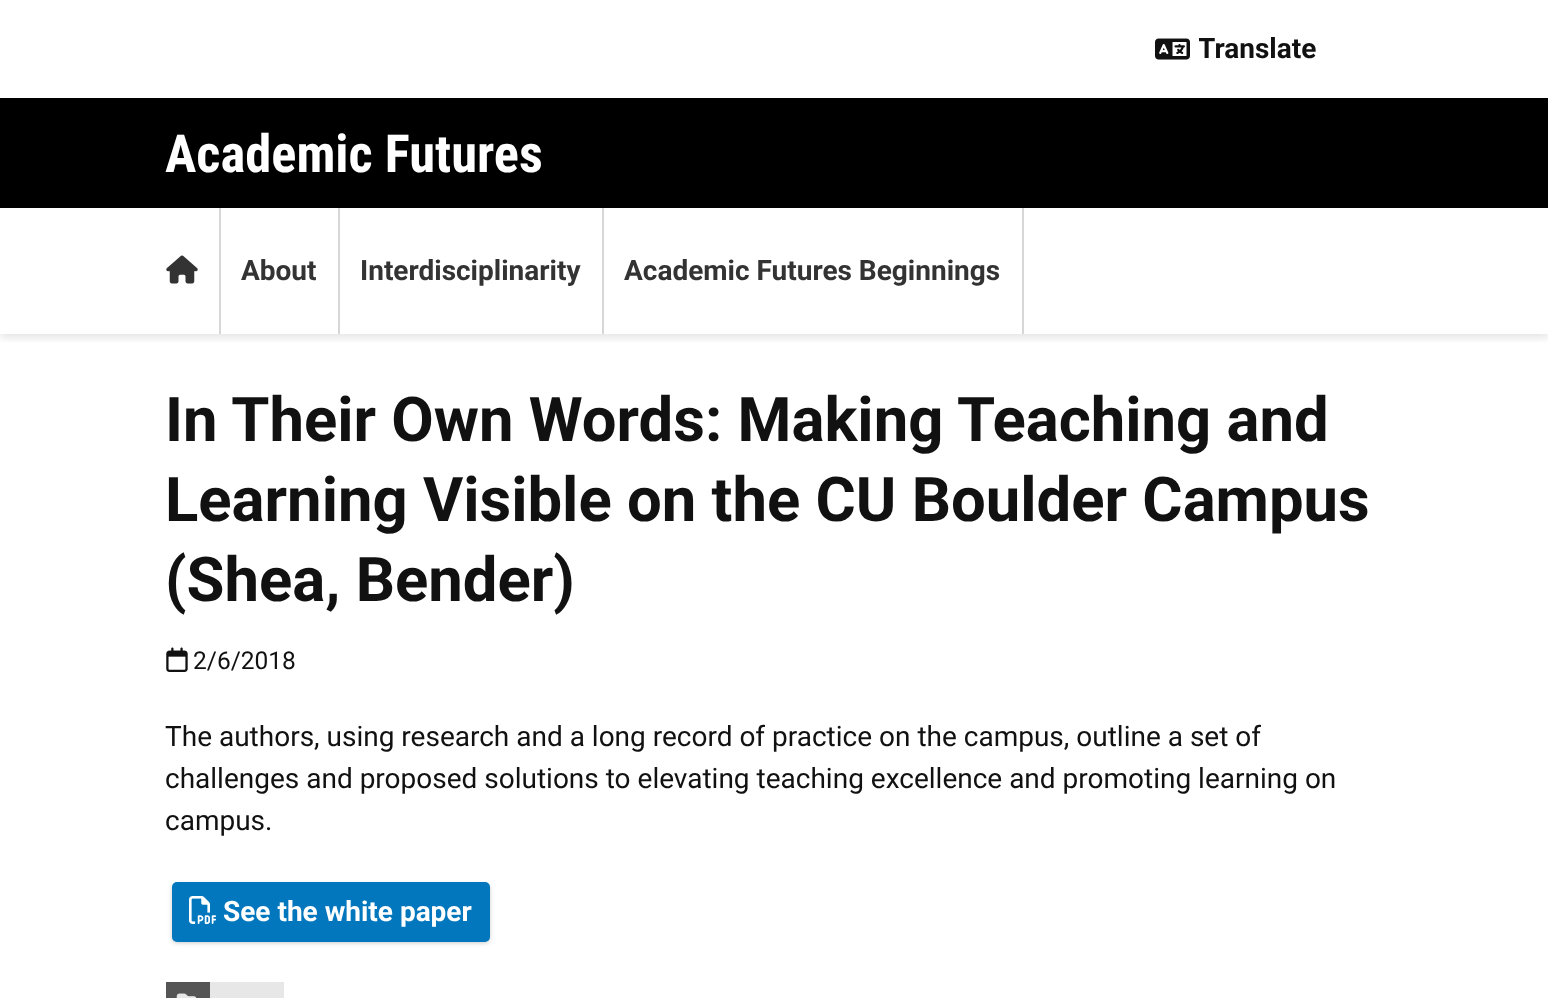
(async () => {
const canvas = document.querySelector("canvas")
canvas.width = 1548
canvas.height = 998
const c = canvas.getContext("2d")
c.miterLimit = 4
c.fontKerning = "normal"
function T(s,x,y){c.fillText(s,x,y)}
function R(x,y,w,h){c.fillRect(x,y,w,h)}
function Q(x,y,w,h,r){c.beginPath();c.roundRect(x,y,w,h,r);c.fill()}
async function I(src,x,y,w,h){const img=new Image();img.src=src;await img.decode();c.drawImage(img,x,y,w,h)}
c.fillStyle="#fff"
R(0,0,1548,998)
await I("1.png",1155,38,35,22)
c.save()
c.beginPath()
c.rect(1199,28,122,42)
c.clip()
c.font="bold 28px Roboto"
c.fillStyle="#111"
T("Translate",1198,58)
c.restore()
c.save()
c.beginPath()
c.rect(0,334,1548,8)
c.clip()
c.fillStyle="#0000001a"
c.filter="blur(4.5px)"
c.beginPath()
c.rect(0,212,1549,126)
c.fill()
c.filter="none"
c.restore()
c.fillStyle="#000"
R(0,98,1548,110)
c.font="bold 52.5px Roboto Condensed"
c.fillStyle="#fff"
T("Academic Futures",165,172)
c.fillStyle="#d7d7d7"
R(219,208,2,126)
await I("2.png",166,255,32,29)
R(338,208,2,126)
c.font="bold 28px Roboto"
c.fillStyle="#333"
T("About",241,280)
c.fillStyle="#d7d7d7"
R(602,208,2,126)
c.fillStyle="#333"
T("Interdisciplinarity",360,280)
c.fillStyle="#d7d7d7"
R(1022,208,2,126)
c.fillStyle="#333"
T("Academic Futures Beginnings",624,280)
c.font="bold 61.6px Roboto"
c.fillStyle="#111"
T("In Their Own Words: Making Teaching and",165,441)
T("Learning Visible on the CU Boulder Campus",165,521)
T("(Shea, Bender)",165,601)
await I("3.png",166,647,22,25)
c.font="24.5px Roboto"
T("2/6/2018",193,669)
c.font="28px Roboto"
T("The authors, using research and a long record of practice on the campus, outline a set of",165,746)
T("challenges and proposed solutions to elevating teaching excellence and promoting learning on",165,788)
T("campus.",165,830)
c.fillStyle="#00000033"
c.filter="blur(2px)"
c.beginPath()
c.roundRect(172,884,318,59,5)
c.fill()
c.filter="none"
c.fillStyle="#0277bd"
Q(172,882,318,60,5)
await I("4.png",189,896,28,28)
c.font="bold 28px Roboto"
c.fillStyle="#fff"
T("See the white paper",223,921)
c.fillStyle="#555"
R(166,982,44,16)
await I("5.png",176,993,21,5)
c.fillStyle="#e7e7e7"
R(210,982,74,16)
})()
